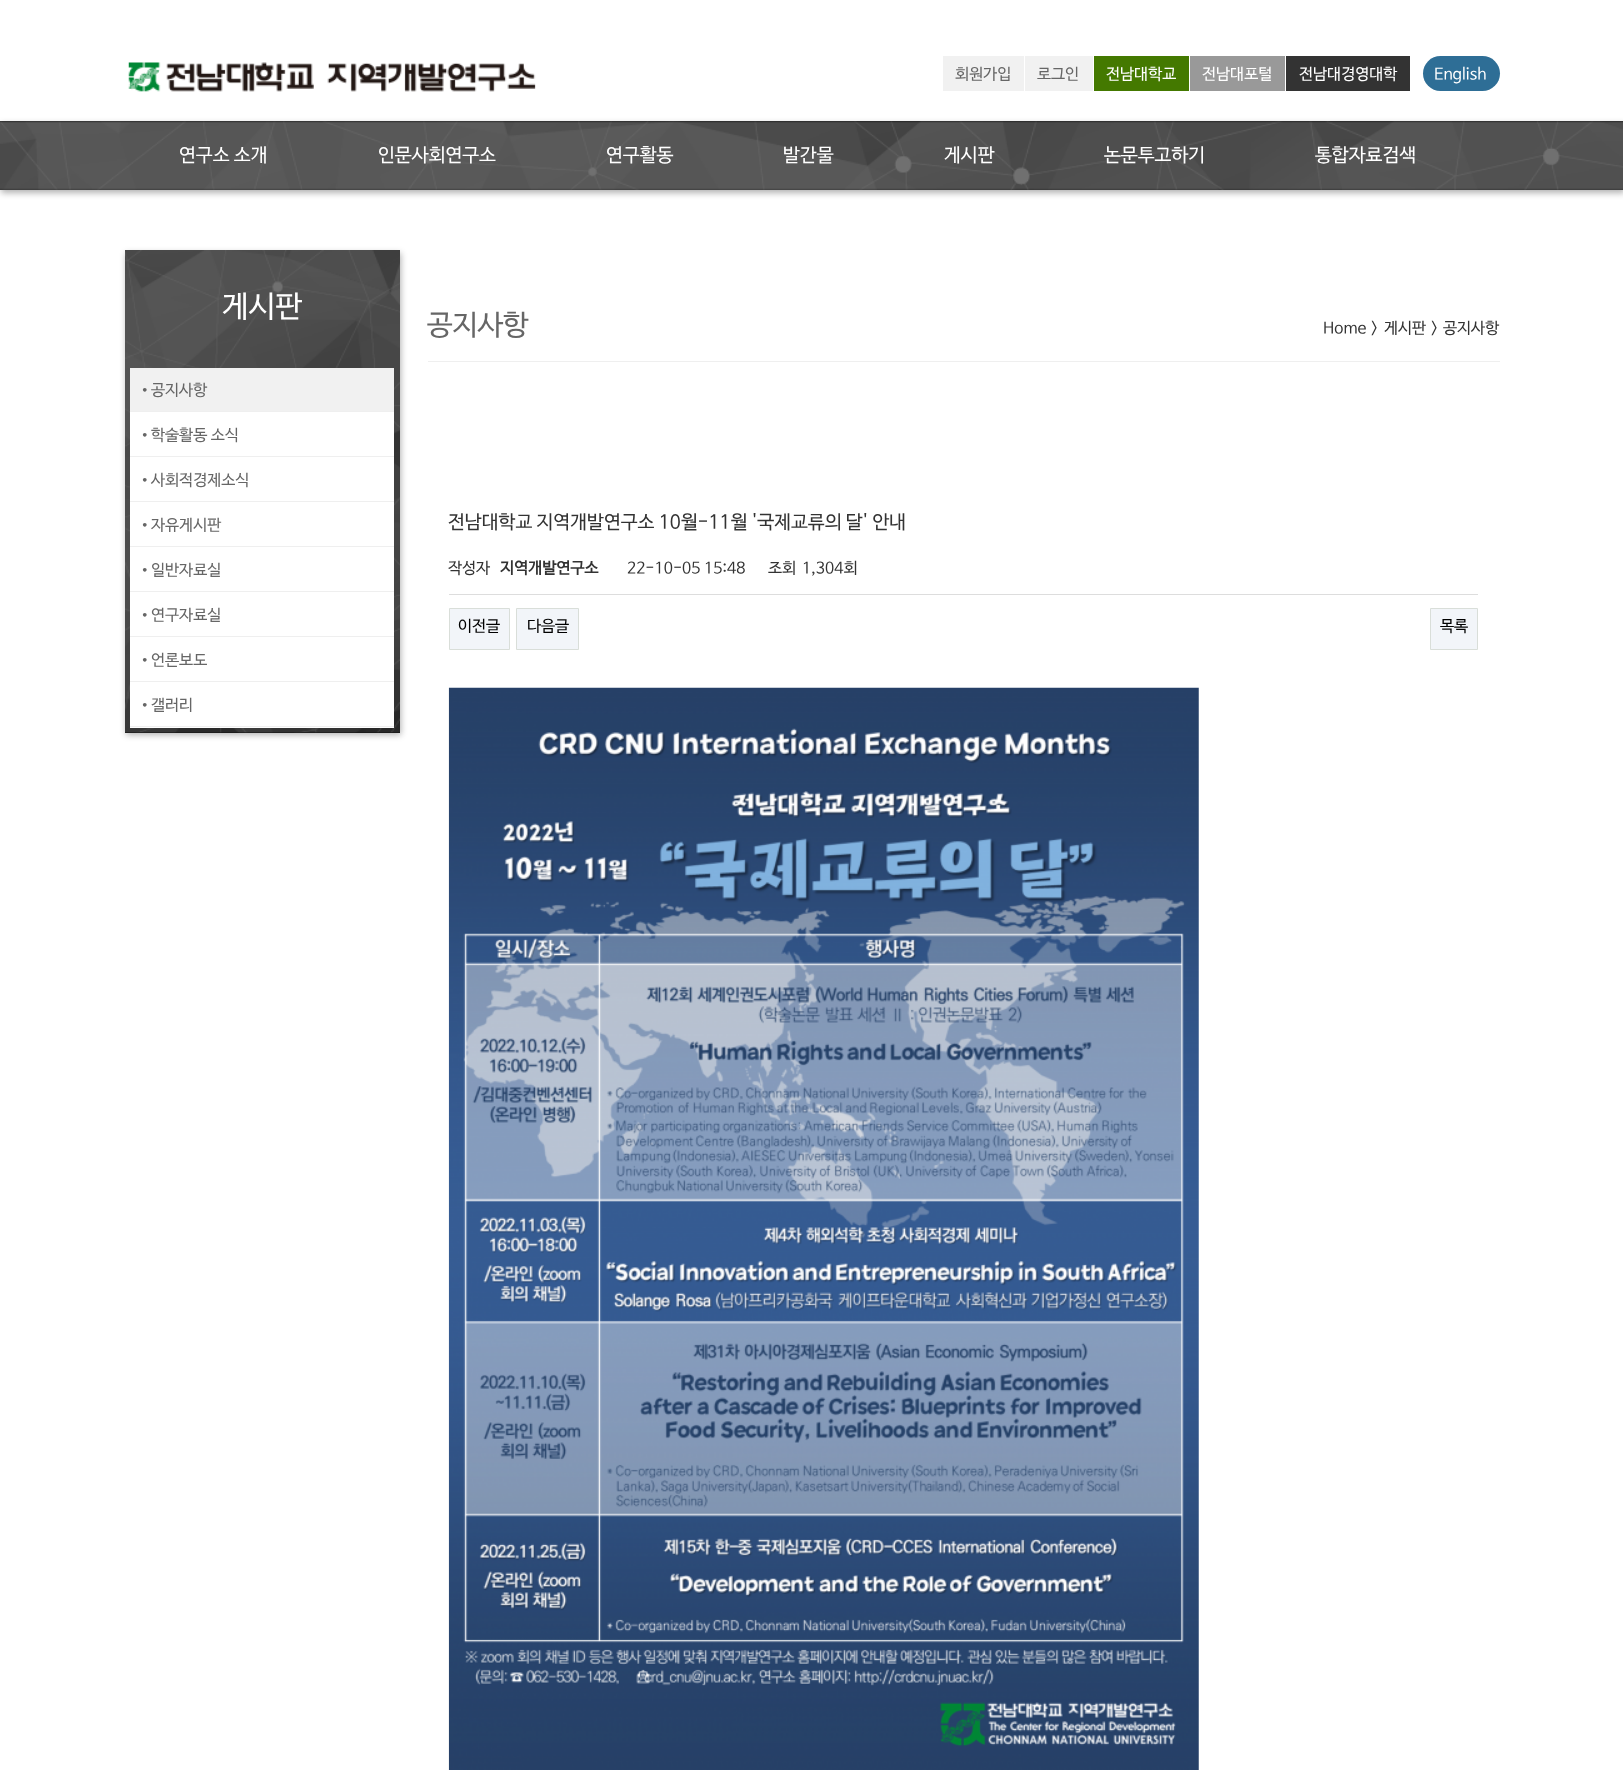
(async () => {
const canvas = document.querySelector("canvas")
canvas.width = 1623
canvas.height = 1774
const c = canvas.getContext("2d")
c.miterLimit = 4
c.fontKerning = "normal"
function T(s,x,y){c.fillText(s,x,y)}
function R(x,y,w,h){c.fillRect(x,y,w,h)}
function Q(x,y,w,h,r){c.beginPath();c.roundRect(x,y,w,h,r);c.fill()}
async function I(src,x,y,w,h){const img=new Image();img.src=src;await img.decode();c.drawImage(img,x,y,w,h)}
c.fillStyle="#fff"
R(0,0,1623,1774)
await I("1.png",128,62,408,30)
c.fillStyle="#f1f1f1"
R(943,56,81,35)
c.font="15.75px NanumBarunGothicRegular"
c.fillStyle="#666"
T("회원가입",955,79)
c.fillStyle="#f1f1f1"
R(1025,56,68,35)
c.fillStyle="#666"
T("로그인",1037,79)
c.fillStyle="#447900"
R(1094,56,95,35)
c.fillStyle="#fff"
T("전남대학교",1106,79)
c.fillStyle="#999"
R(1190,56,95,35)
c.fillStyle="#fff"
T("전남대포털",1202,79)
c.fillStyle="#333"
R(1286,56,124,35)
c.fillStyle="#fff"
T("전남대경영대학",1299,79)
c.fillStyle="#2e6e96"
Q(1423,56,77,35,17.5)
c.fillStyle="#fff"
T("English",1434,79)
c.fillStyle="#0000004d"
c.filter="blur(3px)"
c.beginPath()
c.rect(1,124,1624,69)
c.fill()
c.filter="none"
c.fillStyle="#111"
R(0,121,1623,69)
await I("2.png",0,121,1623,69)
c.font="18.9px NanumBarunGothicRegular"
c.fillStyle="#fff"
T("연구소 소개",179,161)
T("인문사회연구소",378,161)
T("연구활동",606,161)
T("발간물",783,161)
T("게시판",944,161)
T("논문투고하기",1104,161)
T("통합자료검색",1315,161)
c.fillStyle="#0000004d"
c.filter="blur(3px)"
c.beginPath()
c.rect(126,253,275,482)
c.fill()
c.filter="none"
c.fillStyle="#111"
R(125,250,275,483)
await I("3.png",125,250,275,483)
c.font="30px NanumBarunGothicRegular"
c.fillStyle="#fff"
T("게시판",222,316)
R(130,412,264,316)
c.fillStyle="#efefef"
R(130,411,264,1)
c.fillStyle="#f1f1f1"
R(130,368,264,43)
c.font="15.75px Liberation Serif"
c.fillStyle="#666"
T("•",142,395)
c.font="15.75px NanumBarunGothicRegular"
T("공지사항",151,395)
c.fillStyle="#efefef"
R(130,456,264,1)
c.font="15.75px Liberation Serif"
c.fillStyle="#666"
T("•",142,440)
c.font="15.75px NanumBarunGothicRegular"
T("학술활동 소식",151,440)
c.fillStyle="#efefef"
R(130,501,264,1)
c.font="15.75px Liberation Serif"
c.fillStyle="#666"
T("•",142,485)
c.font="15.75px NanumBarunGothicRegular"
T("사회적경제소식",151,485)
c.fillStyle="#efefef"
R(130,546,264,1)
c.font="15.75px Liberation Serif"
c.fillStyle="#666"
T("•",142,530)
c.font="15.75px NanumBarunGothicRegular"
T("자유게시판",151,530)
c.fillStyle="#efefef"
R(130,591,264,1)
c.font="15.75px Liberation Serif"
c.fillStyle="#666"
T("•",142,575)
c.font="15.75px NanumBarunGothicRegular"
T("일반자료실",151,575)
c.fillStyle="#efefef"
R(130,636,264,1)
c.font="15.75px Liberation Serif"
c.fillStyle="#666"
T("•",142,620)
c.font="15.75px NanumBarunGothicRegular"
T("연구자료실",151,620)
c.fillStyle="#efefef"
R(130,681,264,1)
c.font="15.75px Liberation Serif"
c.fillStyle="#666"
T("•",142,665)
c.font="15.75px NanumBarunGothicRegular"
T("언론보도",151,665)
c.fillStyle="#efefef"
R(130,726,264,1)
c.font="15.75px Liberation Serif"
c.fillStyle="#666"
T("•",142,710)
c.font="15.75px NanumBarunGothicRegular"
T("갤러리",151,710)
c.fillStyle="#efefef"
R(428,361,1072,1)
c.font="28.5px NanumBarunGothicRegular"
c.fillStyle="#666"
T("공지사항",427,334)
c.font="15.75px NanumBarunGothicRegular"
c.fillStyle="#333"
T("Home",1323,333)
T(">",1371,333)
T("게시판",1384,333)
T(">",1431,333)
T("공지사항",1443,333)
c.font="18.9px NanumBarunGothicRegular"
T("전남대학교 지역개발연구소 10월-11월 '국제교류의 달' 안내",448,528)
c.fillStyle="#ddd"
R(449,594,1029,1)
c.font="15.75px NanumBarunGothicRegular"
c.fillStyle="#333"
T("작성자",448,573)
c.font="bold 15.75px NanumBarunGothicRegular"
T("지역개발연구소",500,573)
c.font="15.75px NanumBarunGothicRegular"
T("22-10-05 15:48",627,573)
T("조회",768,573)
T("1,304회",802,573)
c.fillStyle="#f2f5f9"
c.beginPath()
c.rect(449.5,608.5,60,41)
c.fill()
c.strokeStyle="#d9ded9"
c.stroke()
c.fillStyle="#000"
T("이전글",458,631)
c.fillStyle="#f2f5f9"
c.beginPath()
c.rect(516.5,608.5,62,41)
c.fill()
c.stroke()
c.fillStyle="#000"
T("다음글",527,631)
c.fillStyle="#f2f5f9"
c.beginPath()
c.rect(1430.5,608.5,47,41)
c.fill()
c.stroke()
c.fillStyle="#000"
T("목록",1440,631)
await I("4.png",448,687,751,1083)
})()
